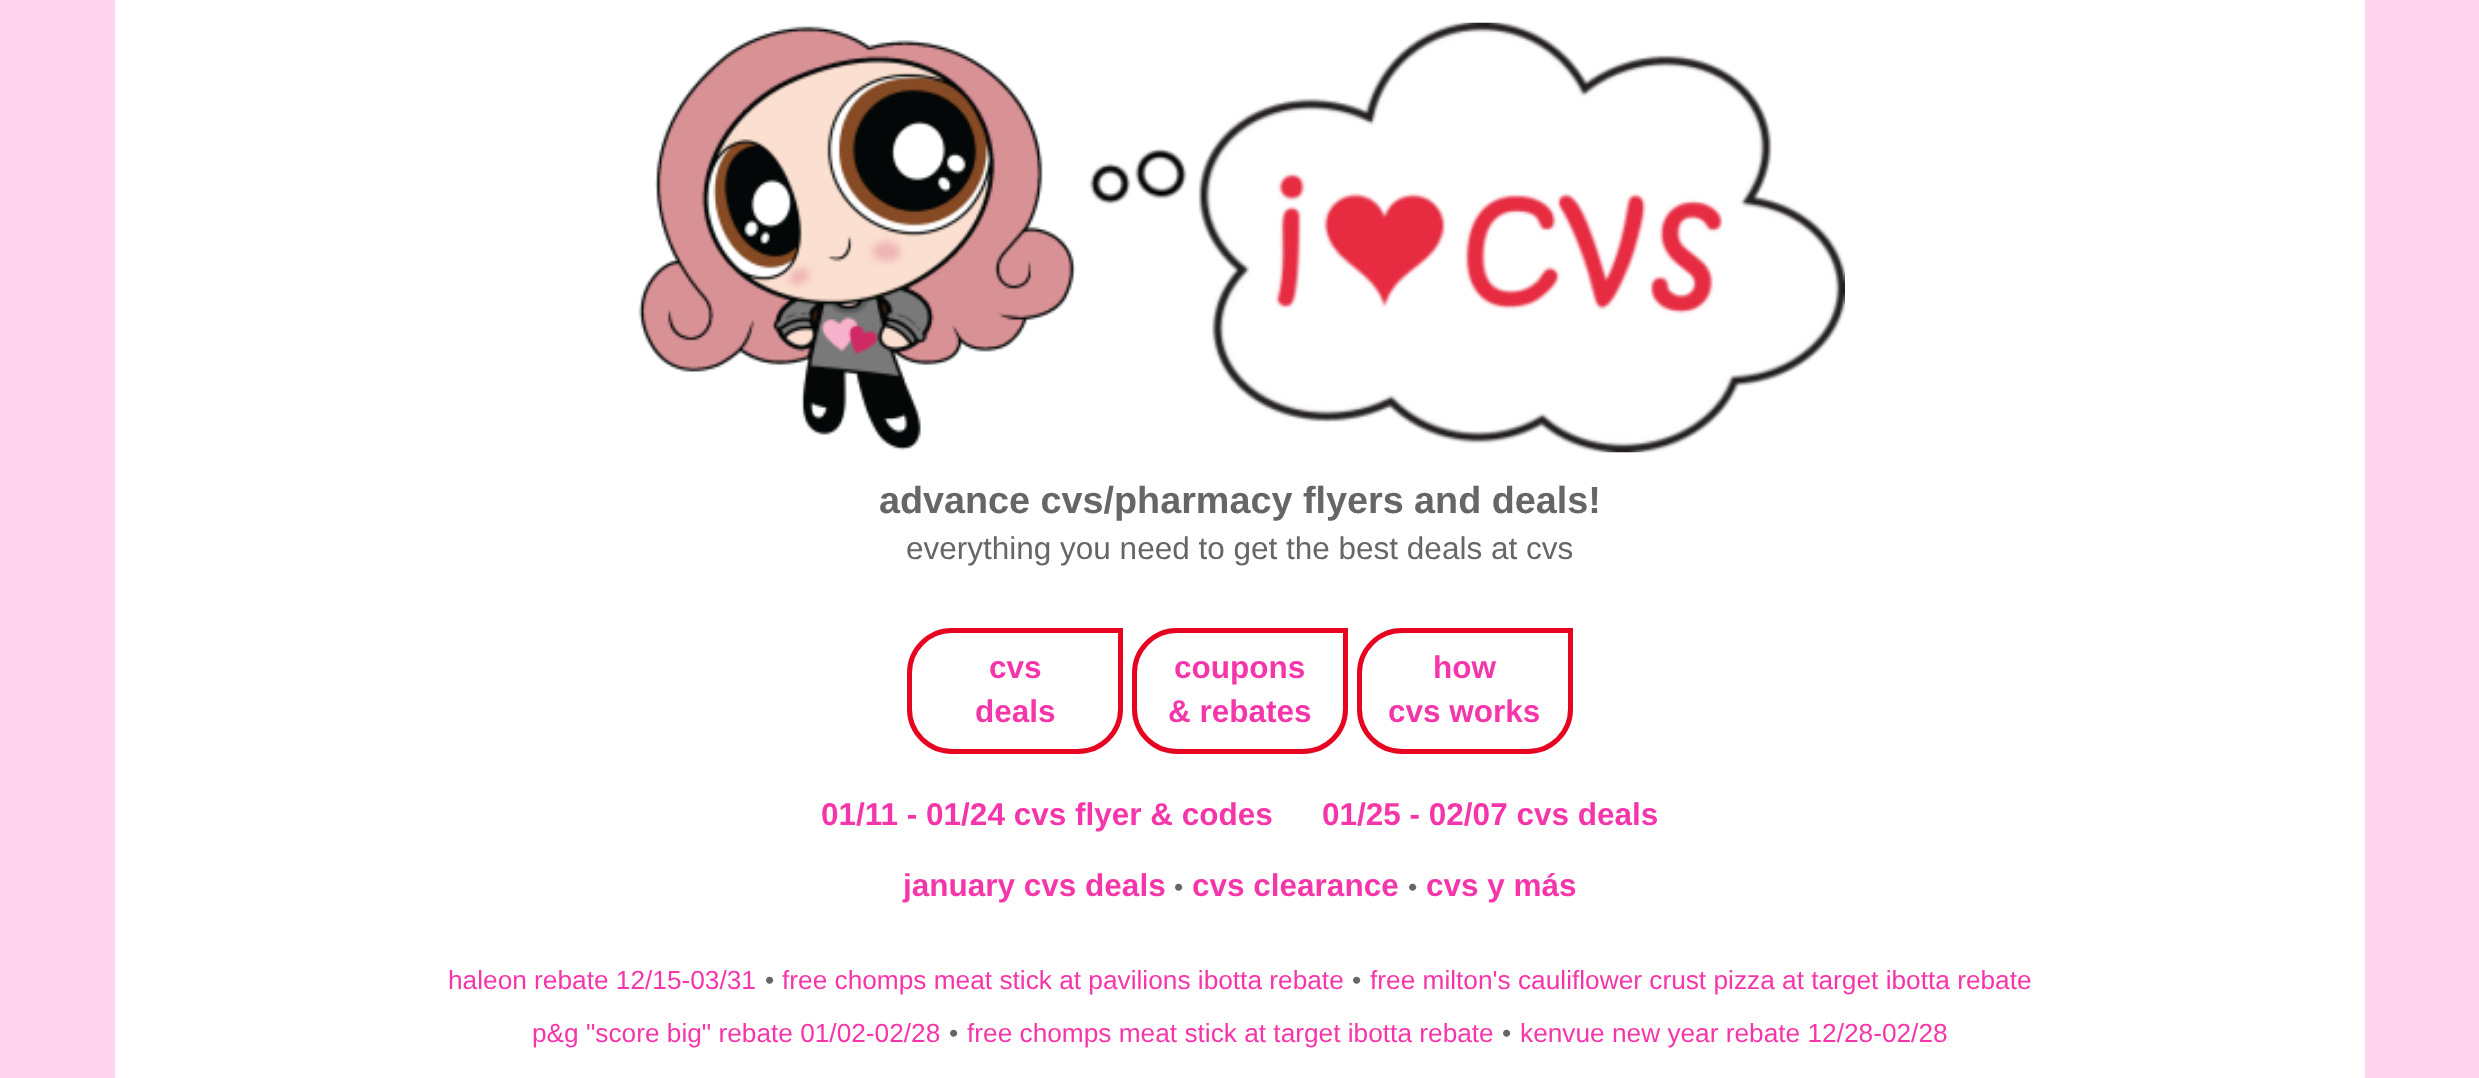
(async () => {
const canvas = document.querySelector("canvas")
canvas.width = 2479
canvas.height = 1078
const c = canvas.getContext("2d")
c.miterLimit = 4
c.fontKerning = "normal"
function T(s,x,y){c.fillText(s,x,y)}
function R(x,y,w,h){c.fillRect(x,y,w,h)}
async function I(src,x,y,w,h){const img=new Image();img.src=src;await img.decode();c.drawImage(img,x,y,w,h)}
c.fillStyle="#ffd4ec"
R(0,0,2479,1078)
c.fillStyle="#fff"
R(115,0,2250,1078)
await I("1.png",638,22,1207,431)
c.font="bold 37.75px Liberation Sans"
c.fillStyle="#666"
T("advance cvs/pharmacy flyers and deals!",879,513)
c.font="31.5px Liberation Sans"
T("everything you need to get the best deals at cvs",906,559)
c.beginPath()
c.roundRect(909.5,630.5,211,121,[42.5,0,42.5,42.5])
c.strokeStyle="#e60420"
c.lineWidth=5
c.stroke()
c.font="bold 31.5px Liberation Sans"
c.fillStyle="#f535aa"
T("cvs",989,678)
T("deals",975,722)
c.beginPath()
c.roundRect(1134.5,630.5,211,121,[42.5,0,42.5,42.5])
c.stroke()
T("coupons",1174,678)
T("& rebates",1168,722)
c.beginPath()
c.roundRect(1359.5,630.5,211,121,[42.5,0,42.5,42.5])
c.stroke()
T("how",1433,678)
T("cvs works",1388,722)
T("01/11 - 01/24 cvs flyer & codes",821,825)
T("01/25 - 02/07 cvs deals",1322,825)
T("january cvs deals",903,896)
c.font="26.25px Liberation Sans"
c.fillStyle="#666"
T("•",1174,896)
c.font="bold 31.5px Liberation Sans"
c.fillStyle="#f535aa"
T("cvs clearance",1192,896)
c.font="26.25px Liberation Sans"
c.fillStyle="#666"
T("•",1408,896)
c.font="bold 31.5px Liberation Sans"
c.fillStyle="#f535aa"
T("cvs y más",1426,896)
c.font="26.25px Liberation Sans"
T("haleon rebate 12/15-03/31",448,989)
c.fillStyle="#666"
T("•",765,989)
c.fillStyle="#f535aa"
T("free chomps meat stick at pavilions ibotta rebate",782,989)
c.fillStyle="#666"
T("•",1352,989)
c.fillStyle="#f535aa"
T("free milton's cauliflower crust pizza at target ibotta rebate",1370,989)
T("p&g \"score big\" rebate 01/02-02/28",532,1042)
c.fillStyle="#666"
T("•",949,1042)
c.fillStyle="#f535aa"
T("free chomps meat stick at target ibotta rebate",967,1042)
c.fillStyle="#666"
T("•",1502,1042)
c.fillStyle="#f535aa"
T("kenvue new year rebate 12/28-02/28",1520,1042)
})()
